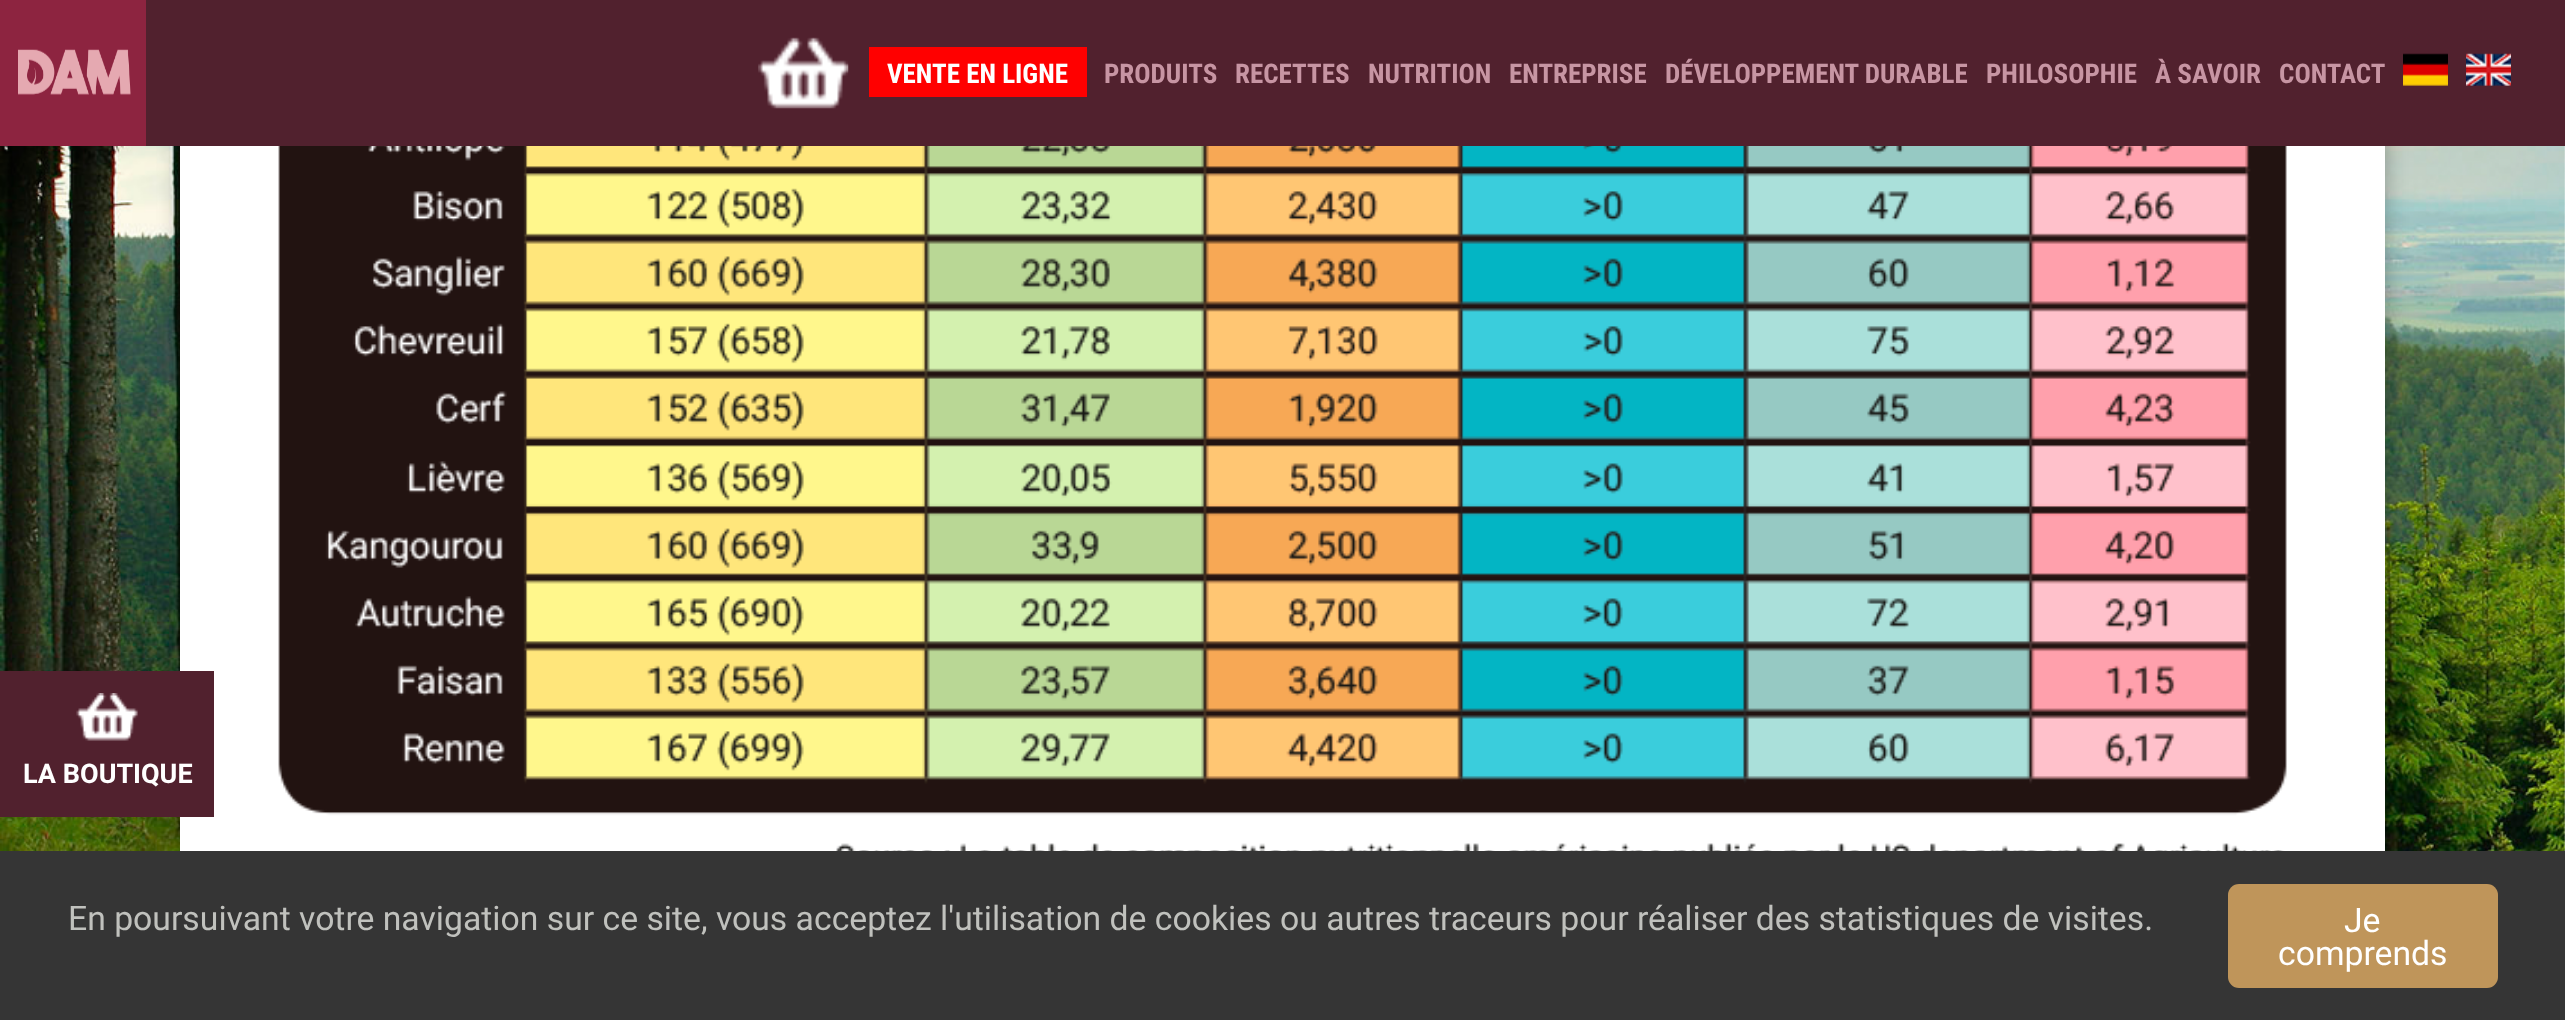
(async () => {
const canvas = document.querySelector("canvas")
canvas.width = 2565
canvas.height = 1020
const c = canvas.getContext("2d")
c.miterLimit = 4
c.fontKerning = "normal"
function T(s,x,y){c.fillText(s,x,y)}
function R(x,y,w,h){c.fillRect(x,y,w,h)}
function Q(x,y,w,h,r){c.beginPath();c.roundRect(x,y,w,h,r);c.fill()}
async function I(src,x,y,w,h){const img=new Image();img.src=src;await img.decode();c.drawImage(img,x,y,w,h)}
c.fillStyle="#fff"
R(0,0,2565,1020)
await I("1.png",0,146,2565,705)
c.fillStyle="#0000004d"
c.filter="blur(11px)"
c.beginPath()
c.roundRect(180,-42,2205,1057,9)
c.fill()
c.filter="none"
c.fillStyle="#fff"
R(180,146,2205,705)
await I("2.png",278,146,2009,705)
c.fillStyle="#51212e"
R(146,0,2419,146)
c.fillStyle="#8d2440"
R(0,0,146,146)
await I("3.png",18,49,113,46)
await I("4.png",758,37,91,72)
c.fillStyle="#f00"
R(869,47,218,50)
c.font="bold 27px Roboto Condensed"
c.fillStyle="#fff"
T("VENTE EN LIGNE",887,83)
c.fillStyle="#c795a3"
T("PRODUITS",1104,83)
T("RECETTES",1235,83)
T("NUTRITION",1368,83)
T("ENTREPRISE",1509,83)
T("DÉVELOPPEMENT DURABLE",1665,83)
T("PHILOSOPHIE",1986,83)
T("À SAVOIR",2155,83)
T("CONTACT",2279,83)
await I("5.png",2403,53,45,33)
await I("6.png",2466,53,45,33)
c.fillStyle="#51212e"
R(0,671,214,146)
await I("7.png",76,693,62,48)
c.font="bold 27px Roboto"
c.fillStyle="#fff"
T("LA BOUTIQUE",23,783)
c.fillStyle="#353535"
R(0,851,2565,169)
c.font="33.75px Roboto"
c.fillStyle="#c0c1bd"
T("En poursuivant votre navigation sur ce site, vous acceptez l'utilisation de cookies ou autres traceurs pour réaliser des statistiques de visites.",68,930)
c.fillStyle="#bf955a"
Q(2228,884,270,104,11)
c.fillStyle="#fff"
T("Je",2344,932)
T("comprends",2278,965)
})()
